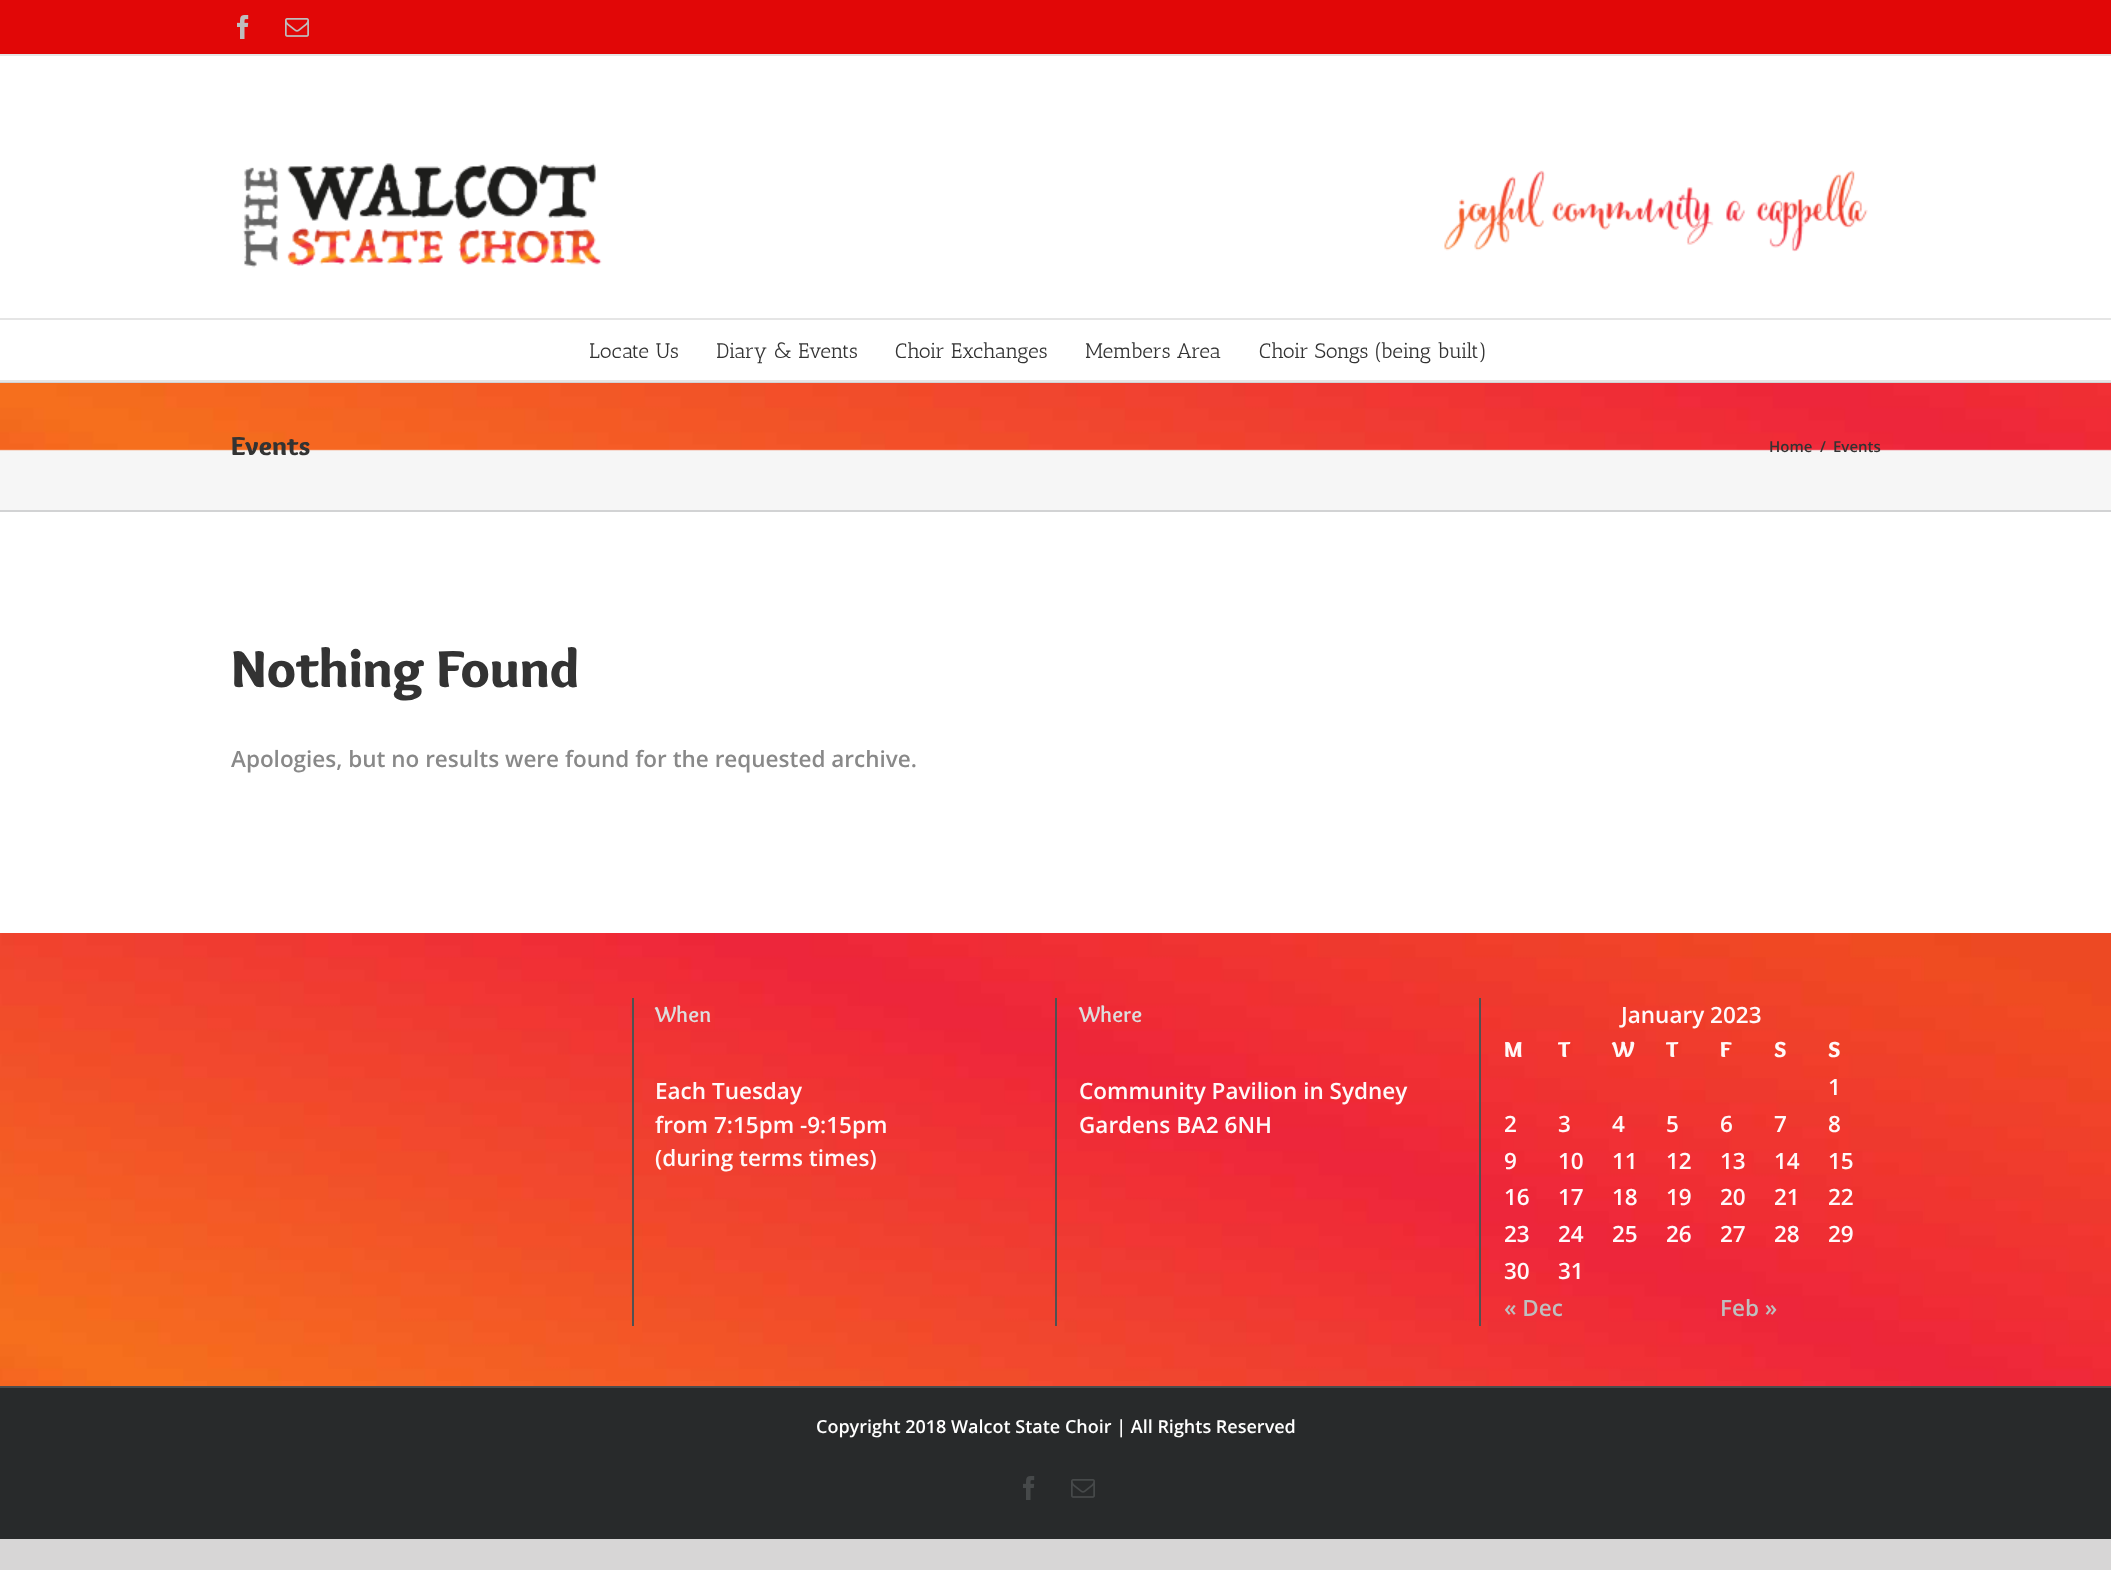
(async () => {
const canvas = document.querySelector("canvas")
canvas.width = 2111
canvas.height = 1570
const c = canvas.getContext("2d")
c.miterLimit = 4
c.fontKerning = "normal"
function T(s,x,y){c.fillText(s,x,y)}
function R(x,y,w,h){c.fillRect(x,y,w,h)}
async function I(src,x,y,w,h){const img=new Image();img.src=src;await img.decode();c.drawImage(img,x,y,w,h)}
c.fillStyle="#d7d6d6"
R(0,0,2111,1570)
c.fillStyle="#fff"
R(0,56,2111,877)
c.fillStyle="#e10707"
R(0,0,2111,54)
c.fillStyle="#e5e5e5"
R(0,54,2111,2)
await I("1.png",237,15,12,24)
await I("2.png",285,18,24,19)
R(0,318,2111,2)
await I("3.png",243,163,359,105)
await I("4.png",1444,170,424,82)
R(0,380,2111,2)
c.font="21px Antic Slab"
c.fillStyle="#333"
T("Locate Us",589,358)
T("Diary & Events",716,358)
T("Choir Exchanges",895,358)
T("Members Area",1085,358)
T("Choir Songs (being built)",1259,358)
c.fillStyle="#f6f6f6"
R(0,449,2111,61)
await I("5.png",0,383,2111,68)
c.fillStyle="#d2d3d4"
R(0,382,2111,1)
R(0,510,2111,2)
c.font="900 27px Overlock"
c.fillStyle="#333"
T("Events",231,455)
c.font="600 15px Open Sans"
T("Home",1769,452)
T("/",1820,452)
T("Events",1833,452)
c.font="900 54px Overlock"
T("Nothing Found",231,687)
c.font="600 22.5px Open Sans"
c.fillStyle="#898989"
T("Apologies, but no results were found for the requested archive.",231,767)
await I("6.png",0,933,2111,453)
c.fillStyle="#505152"
R(632,998,2,328)
R(1055,998,2,328)
c.font="bold 22.5px Overlock"
c.fillStyle="#ddd"
T("When",655,1022)
c.font="600 22.5px Open Sans"
c.fillStyle="#fff9f9"
T("Each Tuesday",655,1099)
T("from 7:15pm -9:15pm",655,1133)
T("(during terms times)",655,1166)
c.fillStyle="#505152"
R(1479,998,2,328)
c.font="bold 22.5px Overlock"
c.fillStyle="#ddd"
T("Where",1079,1022)
c.font="600 22.5px Open Sans"
c.fillStyle="#fff9f9"
T("Community Pavilion in Sydney",1079,1099)
T("Gardens BA2 6NH",1079,1133)
T("January 2023",1621,1023)
c.font="900 22.5px Overlock"
T("M",1504,1057)
T("T",1558,1057)
T("W",1612,1057)
T("T",1666,1057)
T("F",1720,1057)
T("S",1774,1057)
T("S",1828,1057)
c.font="600 22.5px Open Sans"
T("1",1828,1095)
T("2",1504,1132)
T("3",1558,1132)
T("4",1612,1132)
T("5",1666,1132)
T("6",1720,1132)
T("7",1774,1132)
T("8",1828,1132)
T("9",1504,1169)
T("10",1558,1169)
T("11",1612,1169)
T("12",1666,1169)
T("13",1720,1169)
T("14",1774,1169)
T("15",1828,1169)
T("16",1504,1205)
T("17",1558,1205)
T("18",1612,1205)
T("19",1666,1205)
T("20",1720,1205)
T("21",1774,1205)
T("22",1828,1205)
T("23",1504,1242)
T("24",1558,1242)
T("25",1612,1242)
T("26",1666,1242)
T("27",1720,1242)
T("28",1774,1242)
T("29",1828,1242)
T("30",1504,1279)
T("31",1558,1279)
c.fillStyle="#bfbfbf"
T("« Dec",1504,1316)
T("Feb »",1720,1316)
c.fillStyle="#282a2b"
R(0,1388,2111,151)
c.fillStyle="#4b4c4d"
R(0,1386,2111,2)
c.font="600 18px Open Sans"
c.fillStyle="#fff"
T("Copyright 2018 Walcot State Choir | All Rights Reserved",816,1433)
await I("7.png",1023,1476,12,24)
await I("8.png",1071,1479,24,19)
})()
